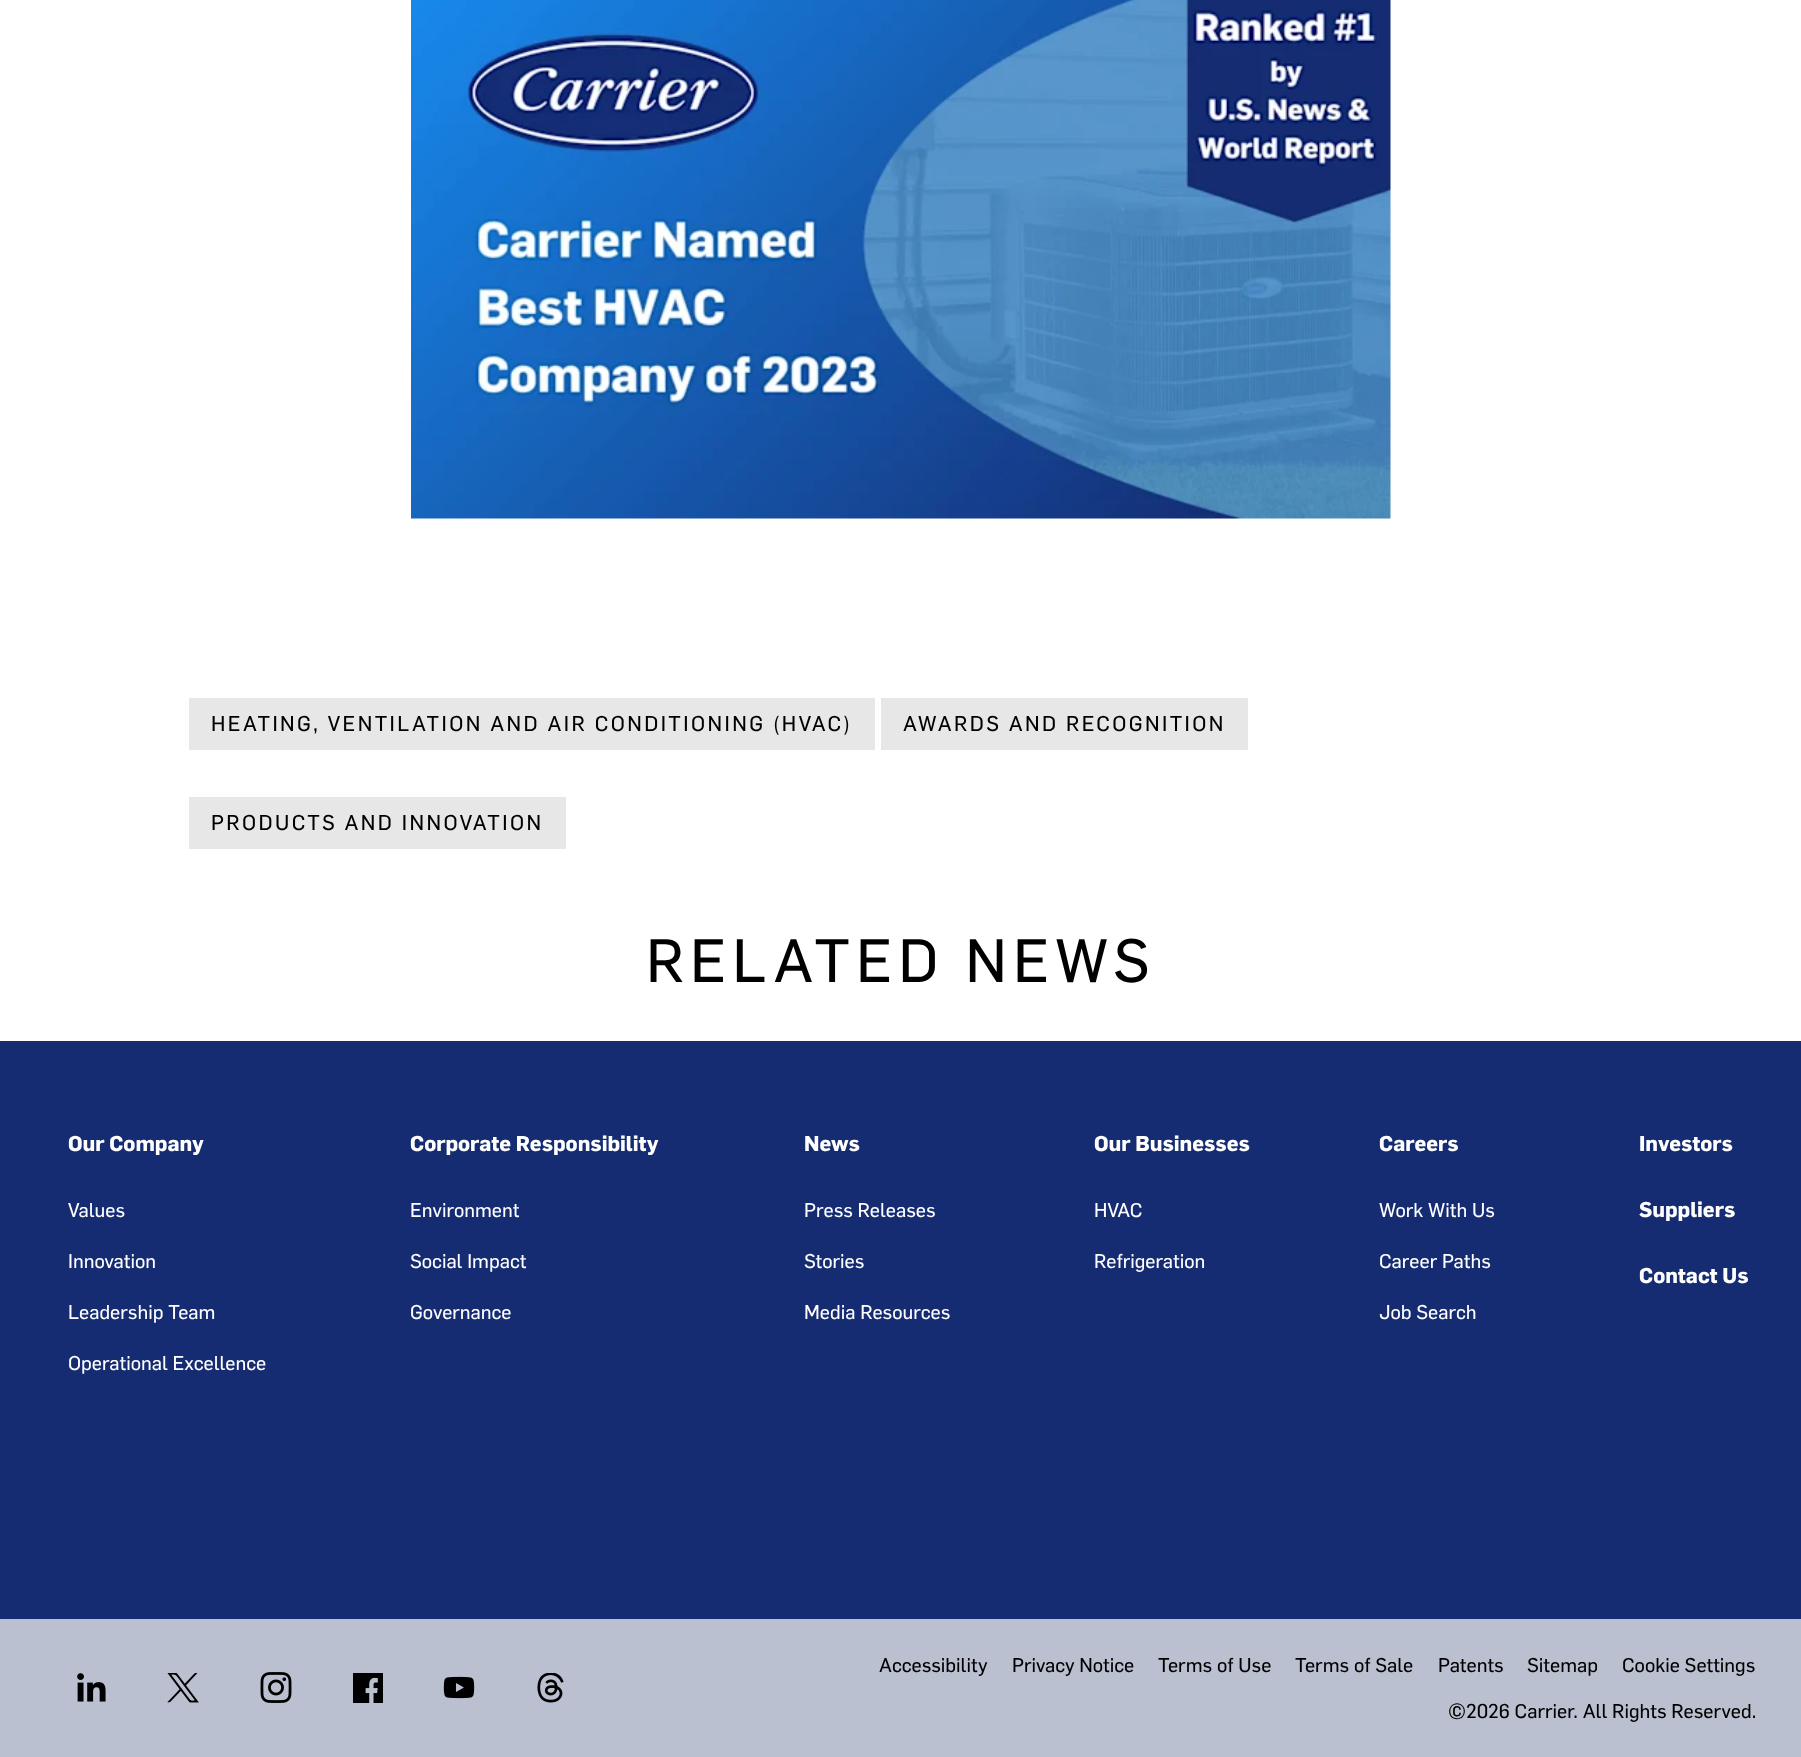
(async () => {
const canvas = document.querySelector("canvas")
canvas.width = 1801
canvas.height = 1757
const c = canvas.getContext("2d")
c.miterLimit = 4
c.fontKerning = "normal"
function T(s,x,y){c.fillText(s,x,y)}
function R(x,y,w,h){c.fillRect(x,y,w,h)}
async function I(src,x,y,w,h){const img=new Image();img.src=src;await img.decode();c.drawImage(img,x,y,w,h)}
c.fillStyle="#fff"
R(0,0,1801,1757)
await I("1.png",411,0,980,519)
c.fillStyle="#e7e7e7"
R(189,698,686,52)
c.letterSpacing="2.4px"
c.font="21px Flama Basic"
c.fillStyle="#000"
T("HEATING, VENTILATION AND AIR CONDITIONING (HVAC)",211,731)
c.fillStyle="#e7e7e7"
R(881,698,367,52)
c.fillStyle="#000"
T("AWARDS AND RECOGNITION",903,731)
c.fillStyle="#e7e7e7"
R(189,797,377,52)
c.fillStyle="#000"
T("PRODUCTS AND INNOVATION",211,830)
c.letterSpacing="6px"
c.font="60px Flama Basic"
T("RELATED NEWS",646,982)
c.fillStyle="#152c73"
R(0,1041,1801,578)
c.letterSpacing="0px"
c.font="bold 21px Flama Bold"
c.fillStyle="#fff"
T("Our Company",68,1151)
c.font="19.5px Flama Basic"
T("Values",68,1217)
T("Innovation",68,1268)
T("Leadership Team",68,1319)
T("Operational Excellence",68,1370)
c.font="bold 21px Flama Bold"
T("Corporate Responsibility",410,1151)
c.font="19.5px Flama Basic"
T("Environment",410,1217)
T("Social Impact",410,1268)
T("Governance",410,1319)
c.font="bold 21px Flama Bold"
T("News",804,1151)
c.font="19.5px Flama Basic"
T("Press Releases",804,1217)
T("Stories",804,1268)
T("Media Resources",804,1319)
c.font="bold 21px Flama Bold"
T("Our Businesses",1094,1151)
c.font="19.5px Flama Basic"
T("HVAC",1094,1217)
T("Refrigeration",1094,1268)
c.font="bold 21px Flama Bold"
T("Careers",1379,1151)
c.font="19.5px Flama Basic"
T("Work With Us",1379,1217)
T("Career Paths",1379,1268)
T("Job Search",1379,1319)
c.font="bold 21px Flama Bold"
T("Investors",1639,1151)
T("Suppliers",1639,1217)
T("Contact Us",1639,1283)
c.fillStyle="#bac0d0"
R(0,1619,1801,138)
await I("2.png",77,1673,29,29)
await I("3.png",167,1673,32,30)
await I("4.png",260,1672,32,31)
c.fillStyle="#000"
R(353,1673,30,30)
await I("5.png",443,1676,32,23)
await I("6.png",537,1673,27,30)
await I("7.png",365,1677,13,26)
c.font="19.5px Flama Basic"
T("Accessibility",879,1672)
T("Privacy Notice",1012,1672)
T("Terms of Use",1158,1672)
T("Terms of Sale",1295,1672)
T("Patents",1438,1672)
T("Sitemap",1527,1672)
T("Cookie Settings",1622,1672)
T("©2026 Carrier. All Rights Reserved.",1448,1718)
})()
